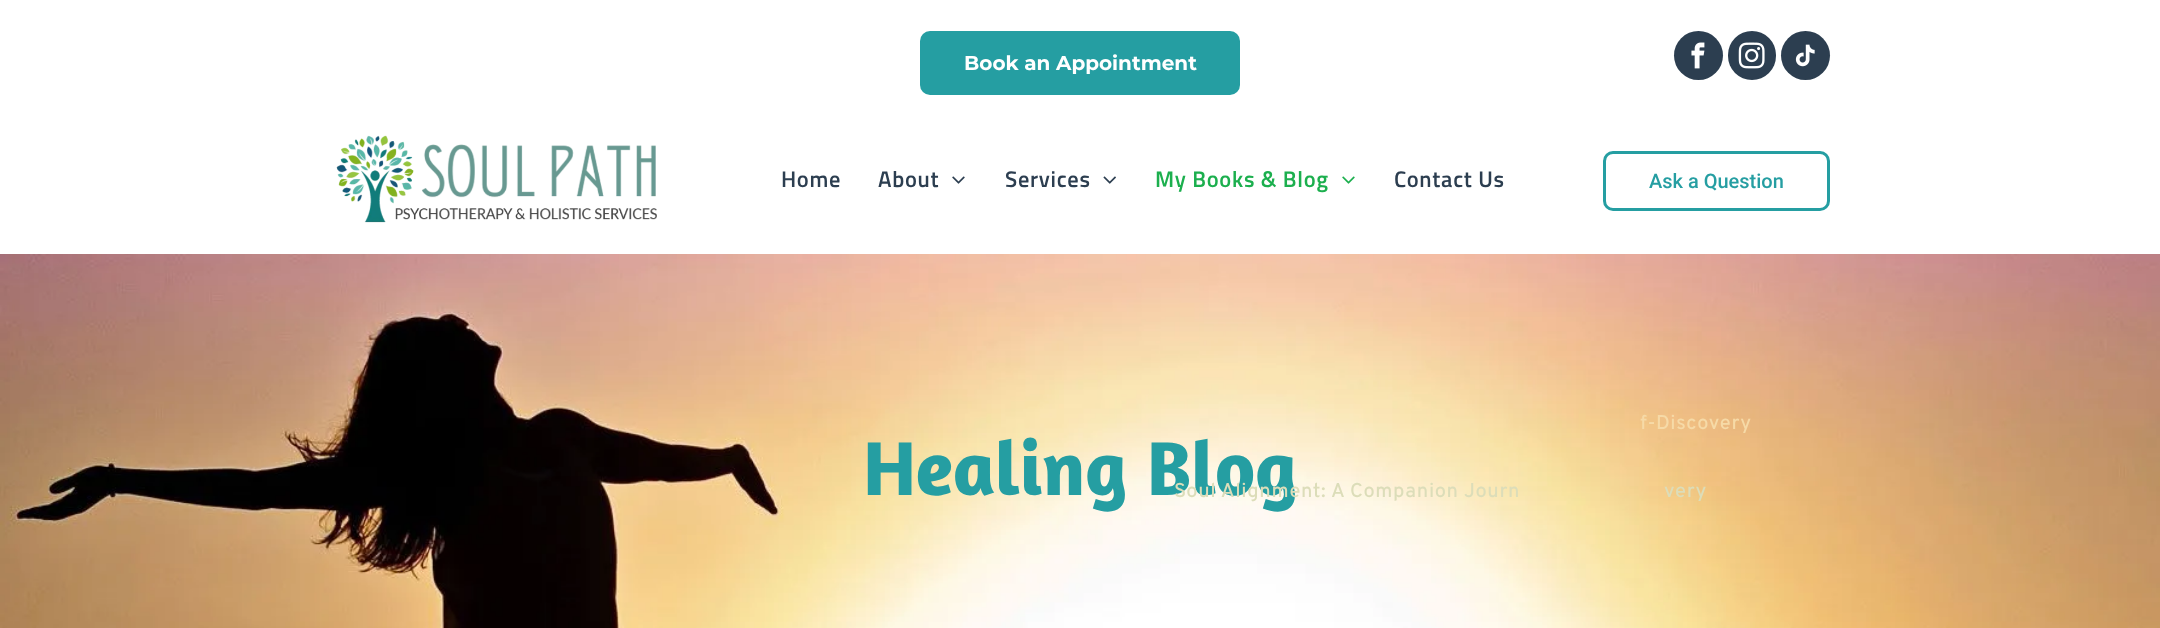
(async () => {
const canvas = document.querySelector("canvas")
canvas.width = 2160
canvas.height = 628
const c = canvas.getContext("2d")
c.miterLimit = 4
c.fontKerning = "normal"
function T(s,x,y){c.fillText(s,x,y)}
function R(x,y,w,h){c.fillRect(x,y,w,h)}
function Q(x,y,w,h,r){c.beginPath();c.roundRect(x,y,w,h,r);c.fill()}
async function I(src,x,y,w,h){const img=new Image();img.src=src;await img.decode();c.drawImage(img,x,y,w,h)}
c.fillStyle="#fff"
R(0,0,2160,628)
c.fillStyle="#259ea2"
Q(920,31,320,64,10)
c.font="bold 20px Montserrat"
c.fillStyle="#fff"
T("Book an Appointment",964,70)
c.fillStyle="#2c3e50"
c.beginPath()
c.arc(1698.5,55.5,24.5,0,7)
c.fill()
await I("1.png",1691,42,14,27)
Q(1728,31,48,49,24)
await I("2.png",1738,42,27,27)
c.beginPath()
c.arc(1805.5,55.5,24.5,0,7)
c.fill()
await I("3.png",1795,44,20,23)
await I("4.png",336,135,321,88)
c.letterSpacing="0.7px"
c.font="600 22.5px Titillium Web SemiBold"
T("Home",781,187)
T("About",878,187)
await I("5.png",952,176,13,8)
T("Services",1005,187)
await I("6.png",1103,176,13,8)
c.fillStyle="#1caf4e"
T("My Books & Blog",1155,187)
await I("7.png",1342,176,13,8)
await I("8.png",0,254,2160,374)
c.letterSpacing="0.6px"
c.font="500 20px Overpass"
c.fillStyle="#f6daa7"
T("f-Discovery",1640,429)
c.letterSpacing="0px"
c.font="bold 77.5px Amaranth"
c.fillStyle="#259ea2"
T("Healing Blog",863,495)
c.letterSpacing="0.6px"
c.font="500 20px Overpass"
c.fillStyle="#dcddb9"
T("Soul Alignment: A Companion Journ",1174,497)
T("very",1664,497)
c.letterSpacing="0.7px"
c.font="600 22.5px Titillium Web SemiBold"
c.fillStyle="#2c3e50"
T("Contact Us",1394,187)
c.beginPath()
c.roundRect(1604.5,152.5,224,57,8.5)
c.strokeStyle="#259ea2"
c.lineWidth=3
c.stroke()
c.letterSpacing="0px"
c.font="500 20px Roboto"
c.fillStyle="#259ea2"
T("Ask a Question",1649,188)
})()
